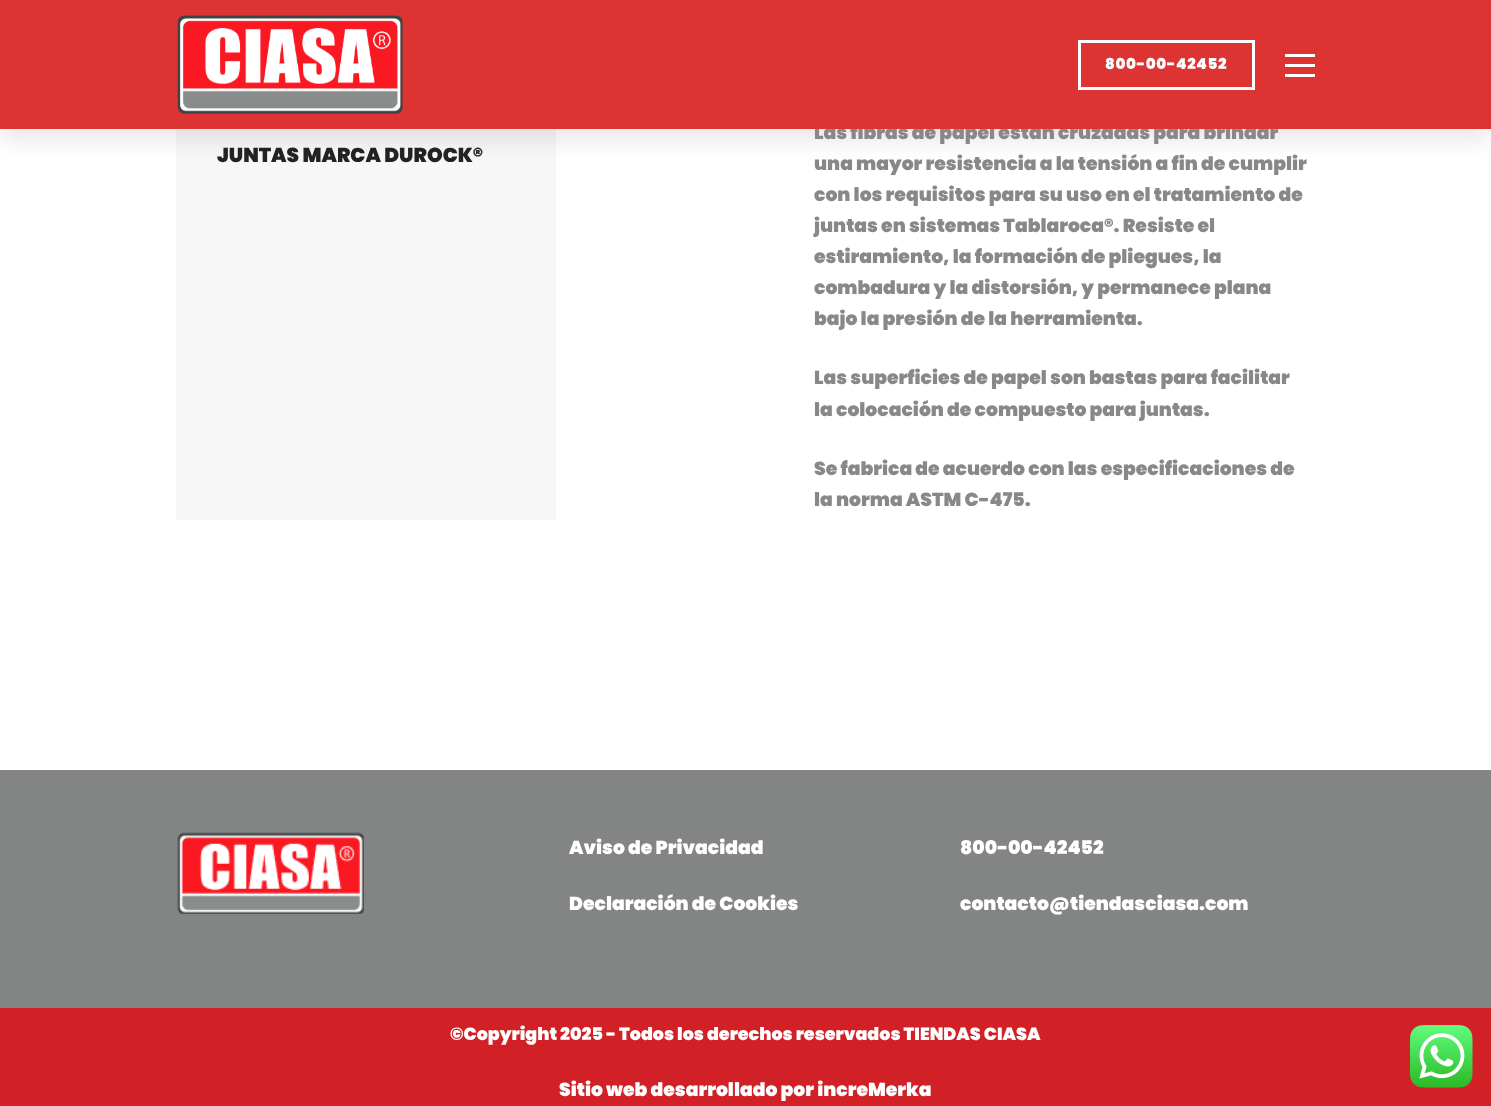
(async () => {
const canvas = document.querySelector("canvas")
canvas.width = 1491
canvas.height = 1106
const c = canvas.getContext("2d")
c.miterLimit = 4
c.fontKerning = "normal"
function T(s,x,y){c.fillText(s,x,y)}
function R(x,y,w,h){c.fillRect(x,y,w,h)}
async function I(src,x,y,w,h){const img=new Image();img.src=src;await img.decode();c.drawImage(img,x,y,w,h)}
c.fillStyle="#fff"
R(0,0,1491,1106)
c.fillStyle="#f7f7f7"
R(176,129,380,391)
c.fillStyle="#0000001a"
c.filter="blur(12.5px)"
c.beginPath()
c.rect(0,10,1491,129)
c.fill()
c.filter="none"
c.font="900 18.75px Poppins"
c.fillStyle="#888"
T("Las fibras de papel están cruzadas para brindar",814,139)
c.fillStyle="#d33"
R(0,0,1491,129)
await I("1.png",177,15,226,99)
c.strokeStyle="#fff"
c.lineWidth=3
c.strokeRect(1079.5,41.5,174,47)
c.letterSpacing="0.6px"
c.font="900 15px Poppins"
c.fillStyle="#fff"
T("800-00-42452",1105,69)
R(1285,64,30,3)
R(1285,54,30,3)
R(1285,74,30,3)
c.letterSpacing="0px"
c.font="900 20px Poppins"
c.fillStyle="#222"
T("JUNTAS MARCA DUROCK®",217,162)
c.font="900 18.75px Poppins"
c.fillStyle="#888"
T("una mayor resistencia a la tensión a fin de cumplir",814,170)
T("con los requisitos para su uso en el tratamiento de",814,201)
T("juntas en sistemas Tablaroca®. Resiste el",814,232)
T("estiramiento, la formación de pliegues, la",814,263)
T("combadura y la distorsión, y permanece plana",814,294)
T("bajo la presión de la herramienta.",814,325)
T("Las superficies de papel son bastas para facilitar",814,384)
T("la colocación de compuesto para juntas.",814,416)
T("Se fabrica de acuerdo con las especificaciones de",814,475)
T("la norma ASTM C-475.",814,506)
c.fillStyle="#828584"
R(0,770,1491,238)
await I("2.png",177,832,187,82)
c.fillStyle="#fff"
T("Aviso de Privacidad",569,854)
T("Declaración de Cookies",569,910)
T("800-00-42452",960,854)
T("contacto@tiendasciasa.com",960,910)
c.fillStyle="#d22027"
R(0,1008,1491,98)
c.font="900 17.5px Poppins"
c.fillStyle="#fff"
T("©Copyright 2025 - Todos los derechos reservados TIENDAS CIASA",450,1040)
c.font="900 18.75px Poppins"
T("Sitio web desarrollado por increMerka",559,1096)
await I("3.png",1410,1025,63,63)
})()
